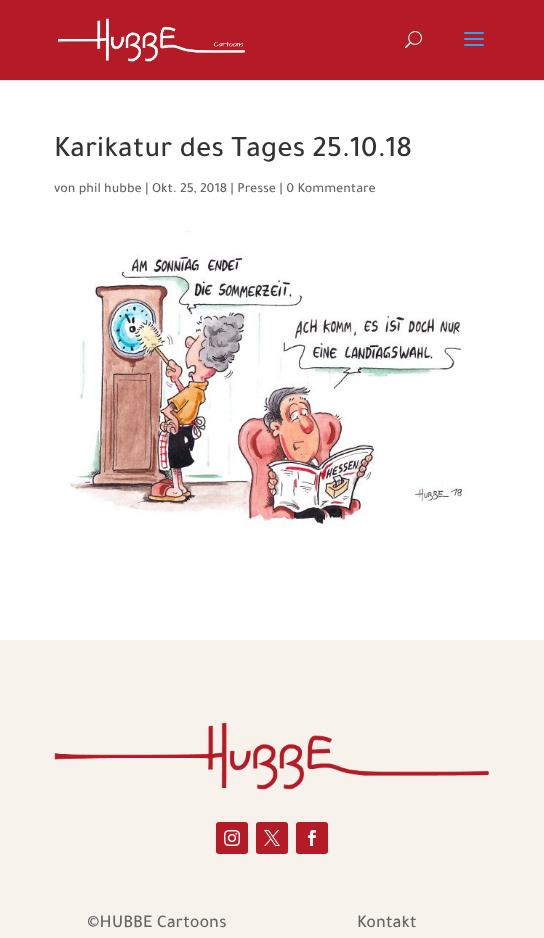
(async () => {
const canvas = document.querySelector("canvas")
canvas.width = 544
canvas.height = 938
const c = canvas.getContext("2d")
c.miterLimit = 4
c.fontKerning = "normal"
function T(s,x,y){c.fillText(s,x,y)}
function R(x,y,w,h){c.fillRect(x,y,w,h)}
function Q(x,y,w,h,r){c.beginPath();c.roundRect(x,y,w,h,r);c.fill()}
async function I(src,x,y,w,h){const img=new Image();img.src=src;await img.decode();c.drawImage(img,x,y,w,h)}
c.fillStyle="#fff"
R(0,0,544,938)
c.fillStyle="#e6e6e6"
R(0,80,544,1)
c.fillStyle="#b51b26"
R(0,0,544,80)
await I("1.png",58,18,187,44)
await I("2.png",405,31,17,18)
await I("3.png",464,32,20,14)
c.font="500 30px Tajawal"
c.fillStyle="#333"
T("Karikatur des Tages 25.10.18",54,156)
c.font="500 14px Tajawal"
c.fillStyle="#666"
T("von phil hubbe | Okt. 25, 2018 | Presse | 0 Kommentare",54,192)
await I("4.png",66,231,401,296)
c.fillStyle="#f7f3ec"
R(0,640,544,298)
await I("5.png",54,722,435,68)
c.fillStyle="#b51b26"
Q(216,822,32,32,3)
await I("6.png",224,830,16,16)
Q(256,822,32,32,3)
await I("7.png",264,830,16,16)
Q(296,822,32,32,3)
await I("8.png",308,830,8,16)
c.font="500 18px Tajawal"
c.fillStyle="#666"
T("©HUBBE Cartoons",87,927)
T("Kontakt",357,927)
})()
